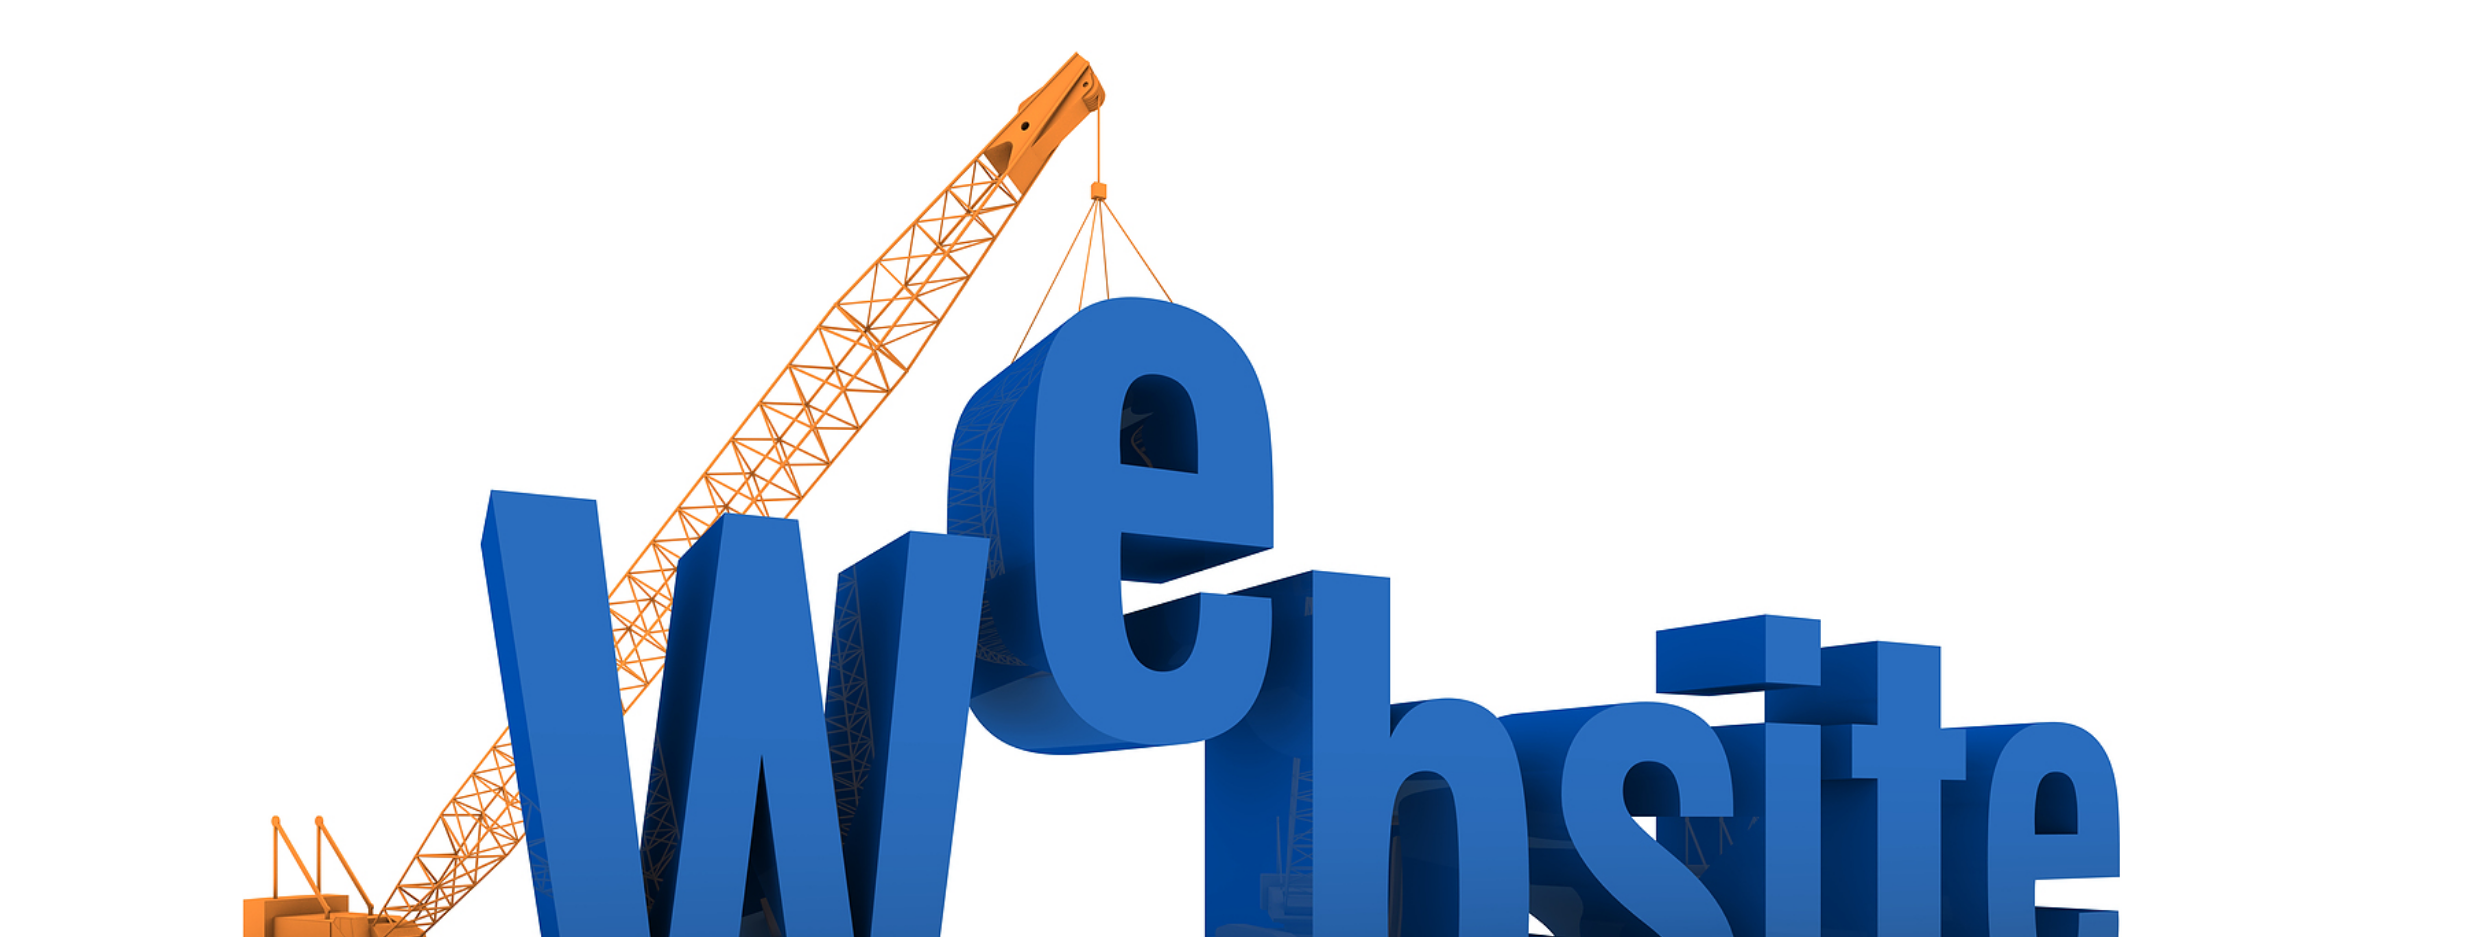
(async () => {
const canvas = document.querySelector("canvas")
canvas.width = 2466
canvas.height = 937
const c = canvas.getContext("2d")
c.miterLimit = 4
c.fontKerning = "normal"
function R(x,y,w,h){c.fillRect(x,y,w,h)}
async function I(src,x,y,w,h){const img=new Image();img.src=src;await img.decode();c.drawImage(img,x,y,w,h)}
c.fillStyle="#fff"
R(0,0,2466,937)
await I("1.png",242,50,1880,887)
})()
